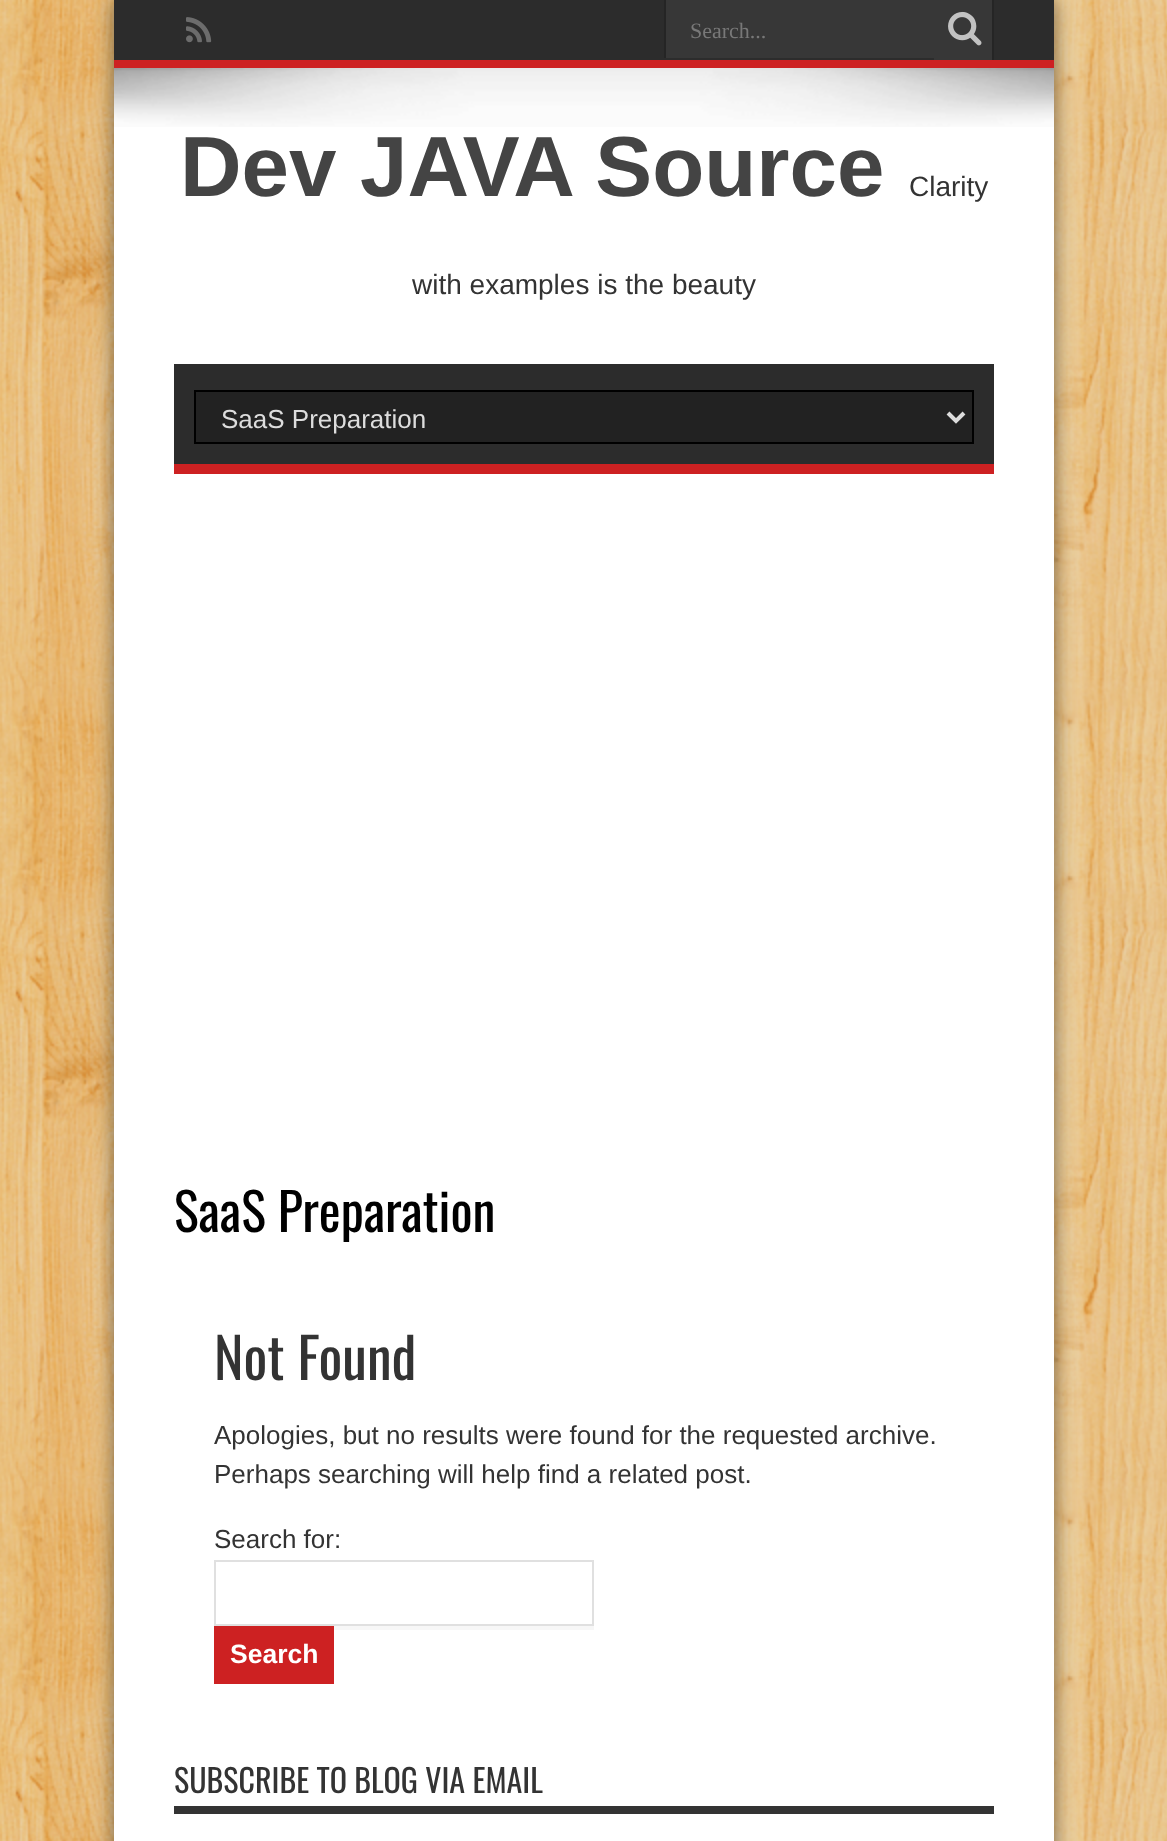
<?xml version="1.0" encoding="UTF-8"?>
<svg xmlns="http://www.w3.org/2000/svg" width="1167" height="1841">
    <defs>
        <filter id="blur1" x="-50%" y="-200%" width="200%" height="500%"><feGaussianBlur stdDeviation="10"/></filter>
    </defs>
    <rect width="100%" height="100%" fill="#FFFFFF"/>
    <image x="0" y="0" width="1167" height="1841" href="img_01.png"/>
    <rect x="114" y="0" width="940" height="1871" fill="#000000" fill-opacity="0.5" filter="url(#blur1)"/>
    <rect x="114" y="68" width="940" height="1773" fill="#FFFFFF"/>
    <rect x="114" y="0" width="940" height="60" fill="#2C2C2C"/>
    <rect x="114" y="60" width="940" height="8" fill="#CD2122"/>
    <image x="186" y="17" width="26" height="26" href="img_02.png"/>
    <rect x="666" y="0" width="268" height="58" fill="#373737"/>
    <rect x="664" y="0" width="2" height="58" fill="#252525"/>
    <text x="690" y="38" font-family="Liberation Serif" font-size="22" fill="#787878">Search...</text>
    <rect x="934" y="0" width="58" height="60" fill="#373737"/>
    <rect x="992" y="0" width="2" height="60" fill="#252525"/>
    <image x="948" y="11" width="34" height="35" href="img_03.png"/>
    <image x="114" y="68" width="940" height="59" href="img_04.png"/>
    <text x="180" y="196" font-family="Liberation Sans" font-size="85.25" font-weight="700" fill="#444444">Dev JAVA Source</text>
    <text x="909" y="196" font-family="Liberation Sans" font-size="28" fill="#333333">Clarity</text>
    <text x="412" y="294" font-family="Liberation Sans" font-size="28" fill="#333333">with examples is the beauty</text>
    <rect x="174" y="364" width="820" height="100" fill="#2C2C2C"/>
    <rect x="174" y="464" width="820" height="10" fill="#CD2122"/>
    <rect x="195" y="391" width="778" height="52" fill="#222222" stroke="#000000" stroke-width="2"/>
    <path d="M 948 413 L 956 421 L 964 413" fill="none" stroke="#DDDDDD" stroke-width="4"/>
    <text x="221" y="428" font-family="Liberation Sans" font-size="26" fill="#DDDDDD">SaaS Preparation</text>
    <text x="174" y="1232" font-family="Oswald" font-size="52" fill="#000000">SaaS Preparation</text>
    <text x="214" y="1380" font-family="Oswald" font-size="56" fill="#333333">Not Found</text>
    <text font-family="Liberation Sans" font-size="26" fill="#333333">
        <tspan x="214" y="1444">Apologies, but no results were found for the requested archive.</tspan>
        <tspan x="214" y="1483">Perhaps searching will help find a related post.</tspan>
    </text>
    <text x="214" y="1548" font-family="Liberation Sans" font-size="26" fill="#333333">Search for:</text>
    <rect x="334" y="1626" width="260" height="4" fill="#F7F7F7"/>
    <rect x="215" y="1561" width="378" height="64" fill="none" stroke="#E0E0E0" stroke-width="2"/>
    <rect x="214" y="1626" width="120" height="58" fill="#CD2122"/>
    <text x="230" y="1663" font-family="Liberation Sans" font-size="26.5" font-weight="700" fill="#FFFFFF">Search</text>
    <rect x="174" y="1806" width="820" height="8" fill="#333333"/>
    <text x="174" y="1793" font-family="Oswald" font-size="32" fill="#333333">SUBSCRIBE TO BLOG VIA EMAIL</text>
</svg>
